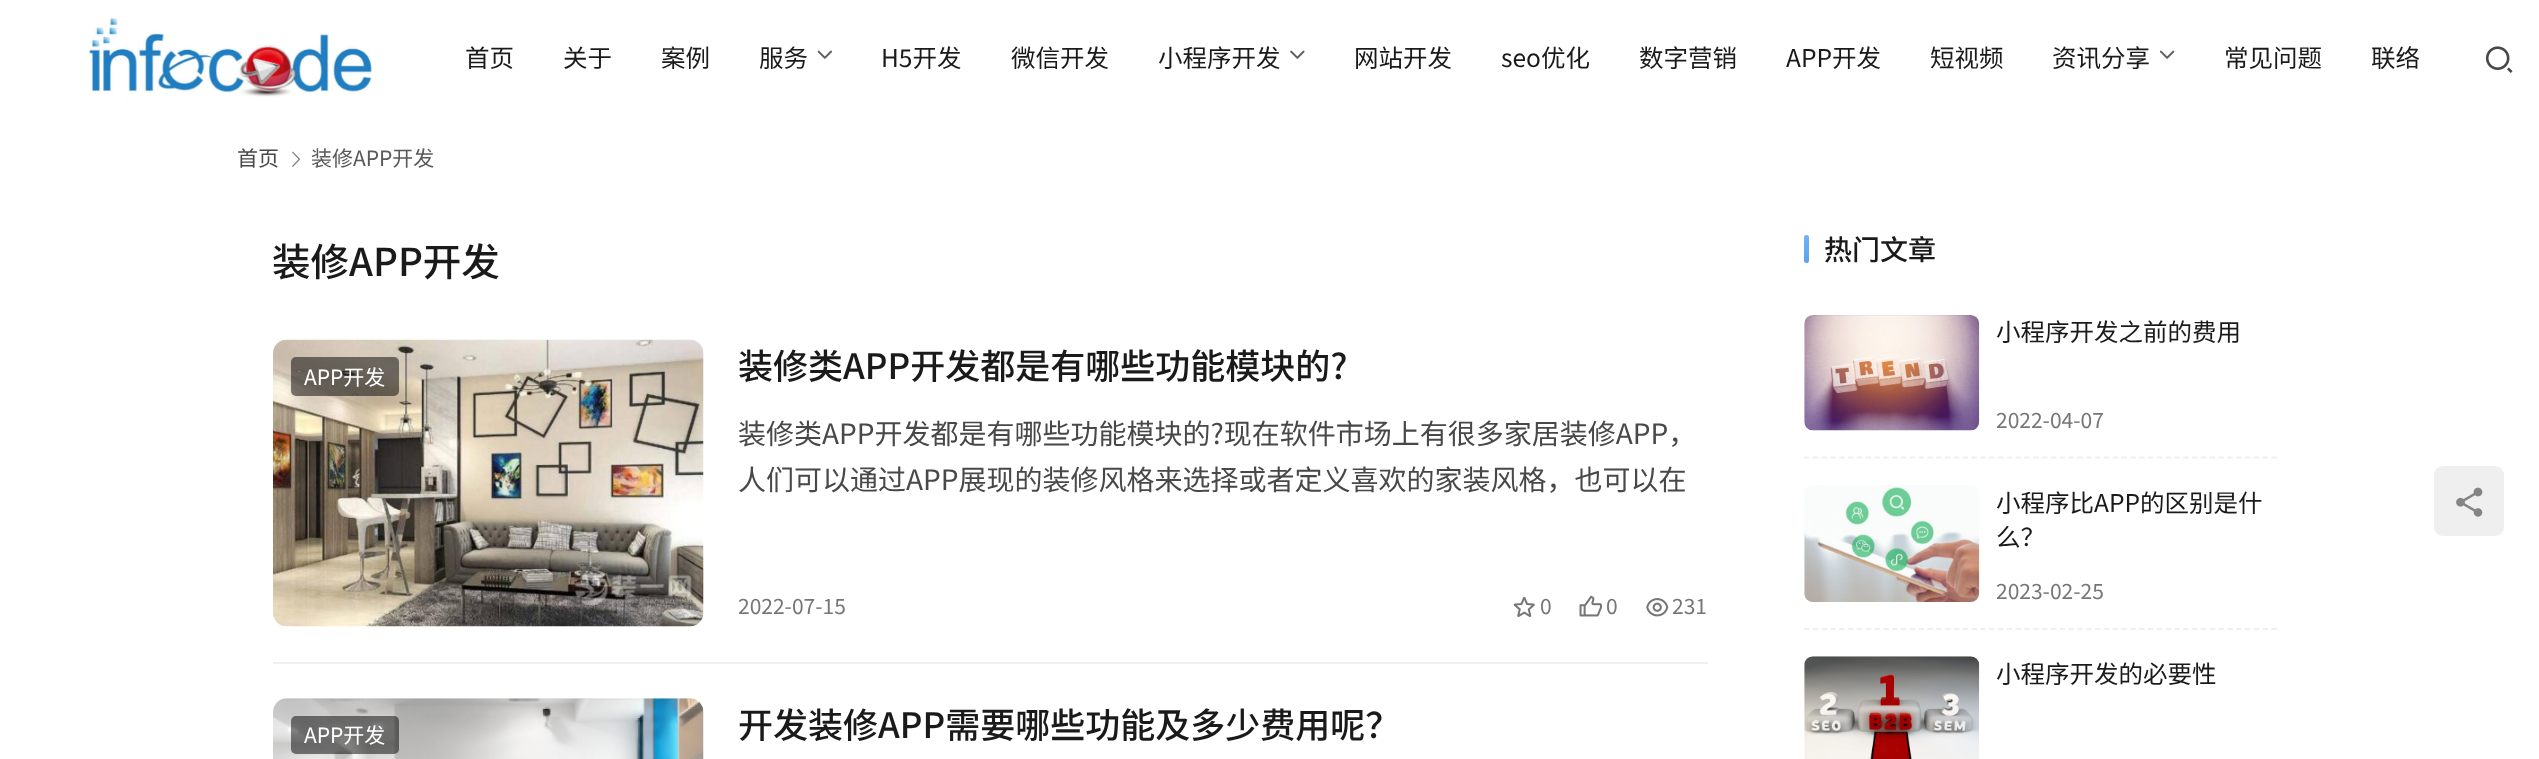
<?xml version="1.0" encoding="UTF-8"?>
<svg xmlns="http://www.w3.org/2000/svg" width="2539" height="759">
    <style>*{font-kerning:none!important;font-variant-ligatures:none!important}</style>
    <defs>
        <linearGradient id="g1" gradientUnits="userSpaceOnUse" x1="1807" y1="235" x2="1807" y2="263"><stop offset="0" stop-color="#FFFFFF" stop-opacity="0.15"/><stop offset="1" stop-color="#FFFFFF" stop-opacity="0"/></linearGradient>
    </defs>
    <rect width="100%" height="100%" fill="#FFFFFF"/>
    <image x="88" y="18" width="284" height="82" href="img_01.png"/>
    <text x="465" y="67" font-family="Noto Sans CJK SC" font-size="24.5" fill="#1A1A1A">首页</text>
    <text x="563" y="67" font-family="Noto Sans CJK SC" font-size="24.5" fill="#1A1A1A">关于</text>
    <text x="661" y="67" font-family="Noto Sans CJK SC" font-size="24.5" fill="#1A1A1A">案例</text>
    <text x="759" y="67" font-family="Noto Sans CJK SC" font-size="24.5" fill="#1A1A1A">服务</text>
    <image x="817" y="50" width="15" height="9" href="img_02.png"/>
    <text x="881" y="67" font-family="Noto Sans CJK SC" font-size="24.5" fill="#1A1A1A">H5开发</text>
    <text x="1011" y="67" font-family="Noto Sans CJK SC" font-size="24.5" fill="#1A1A1A">微信开发</text>
    <text x="1158" y="67" font-family="Noto Sans CJK SC" font-size="24.5" fill="#1A1A1A">小程序开发</text>
    <image x="1290" y="50" width="15" height="9" href="img_03.png"/>
    <text x="1354" y="67" font-family="Noto Sans CJK SC" font-size="24.5" fill="#1A1A1A">网站开发</text>
    <text x="1501" y="67" font-family="Noto Sans CJK SC" font-size="24.5" fill="#1A1A1A">seo优化</text>
    <text x="1639" y="67" font-family="Noto Sans CJK SC" font-size="24.5" fill="#1A1A1A">数字营销</text>
    <text x="1786" y="67" font-family="Noto Sans CJK SC" font-size="24.5" fill="#1A1A1A">APP开发</text>
    <text x="1930" y="67" font-family="Noto Sans CJK SC" font-size="24.5" fill="#1A1A1A">短视频</text>
    <text x="2052" y="67" font-family="Noto Sans CJK SC" font-size="24.5" fill="#1A1A1A">资讯分享</text>
    <image x="2159" y="50" width="16" height="9" href="img_04.png"/>
    <text x="2224" y="67" font-family="Noto Sans CJK SC" font-size="24.5" fill="#1A1A1A">常见问题</text>
    <text x="2371" y="67" font-family="Noto Sans CJK SC" font-size="24.5" fill="#1A1A1A">联络</text>
    <image x="2485" y="46" width="28" height="27" href="img_05.png"/>
    <text x="237" y="166" font-family="Noto Sans CJK SC" font-size="21" fill="#484848">首页</text>
    <image x="292" y="151" width="8" height="16" href="img_06.png"/>
    <text x="311" y="166" font-family="Noto Sans CJK SC" font-size="21" fill="#5A5A5A">装修APP开发</text>
    <text x="272" y="276" font-family="Noto Sans CJK SC" font-size="38.5" font-weight="500" fill="#1A1A1A">装修APP开发</text>
    <rect x="273" y="662" width="1435" height="2" fill="#EFEFEF"/>
    <image x="273" y="339" width="431" height="288" href="img_07.png"/>
    <rect x="291" y="357" width="108" height="39" rx="5" fill="#000000" fill-opacity="0.5"/>
    <text x="304" y="385" font-family="Noto Sans CJK SC" font-size="21" fill="#FFFFFF">APP开发</text>
    <text x="738" y="379" font-family="Noto Sans CJK SC" font-size="35" font-weight="500" fill="#1A1A1A">装修类APP开发都是有哪些功能模块的?</text>
    <text font-family="Noto Sans CJK SC" font-size="28" fill="#484848">
        <tspan x="738" y="444">装修类APP开发都是有哪些功能模块的?现在软件市场上有很多家居装修APP，</tspan>
        <tspan x="738" y="490">人们可以通过APP展现的装修风格来选择或者定义喜欢的家装风格，也可以在</tspan>
    </text>
    <text x="738" y="614" font-family="Noto Sans CJK SC" font-size="21" fill="#767676">2022-07-15</text>
    <image x="1513" y="596" width="22" height="21" href="img_08.png"/>
    <text x="1540" y="614" font-family="Noto Sans CJK SC" font-size="21" fill="#767676">0</text>
    <image x="1579" y="595" width="23" height="22" href="img_09.png"/>
    <text x="1606" y="614" font-family="Noto Sans CJK SC" font-size="21" fill="#767676">0</text>
    <image x="1646" y="598" width="23" height="19" href="img_10.png"/>
    <text x="1672" y="614" font-family="Noto Sans CJK SC" font-size="21" fill="#767676">231</text>
    <image x="273" y="698" width="431" height="61" href="img_11.png"/>
    <rect x="291" y="716" width="108" height="38" rx="5" fill="#000000" fill-opacity="0.5"/>
    <text x="304" y="743" font-family="Noto Sans CJK SC" font-size="21" fill="#FFFFFF">APP开发</text>
    <text x="738" y="738" font-family="Noto Sans CJK SC" font-size="35" font-weight="500" fill="#1A1A1A">开发装修APP需要哪些功能及多少费用呢？</text>
    <rect x="1804" y="235" width="5" height="28" rx="2.5" fill="#5CA2F2"/>
    <rect x="1804" y="235" width="5" height="28" rx="2.5" fill="url(#g1)"/>
    <text x="1824" y="260" font-family="Noto Sans CJK SC" font-size="28" font-weight="500" fill="#1A1A1A">热门文章</text>
    <path d="M 1804 457.5 H 2277" fill="none" stroke="#EFEFEF" stroke-width="1.8" stroke-dasharray="5.25 3.57"/>
    <image x="1804" y="315" width="176" height="116" href="img_12.png"/>
    <text x="1996" y="341" font-family="Noto Sans CJK SC" font-size="24.5" fill="#1A1A1A">小程序开发之前的费用</text>
    <text x="1996" y="428" font-family="Noto Sans CJK SC" font-size="21" fill="#767676">2022-04-07</text>
    <path d="M 1804 629 H 2277" fill="none" stroke="#EFEFEF" stroke-width="1.8" stroke-dasharray="5.25 3.57"/>
    <image x="1804" y="485" width="176" height="117" href="img_13.png"/>
    <text font-family="Noto Sans CJK SC" font-size="24.5" fill="#1A1A1A">
        <tspan x="1996" y="512">小程序比APP的区别是什</tspan>
        <tspan x="1996" y="546">么？</tspan>
    </text>
    <text x="1996" y="599" font-family="Noto Sans CJK SC" font-size="21" fill="#767676">2023-02-25</text>
    <image x="1804" y="656" width="176" height="103" href="img_14.png"/>
    <text x="1996" y="683" font-family="Noto Sans CJK SC" font-size="24.5" fill="#1A1A1A">小程序开发的必要性</text>
    <rect x="2434" y="466" width="70" height="70" rx="9" fill="#EFEFEF"/>
    <image x="2456" y="487" width="27" height="30" href="img_15.png"/>
</svg>
